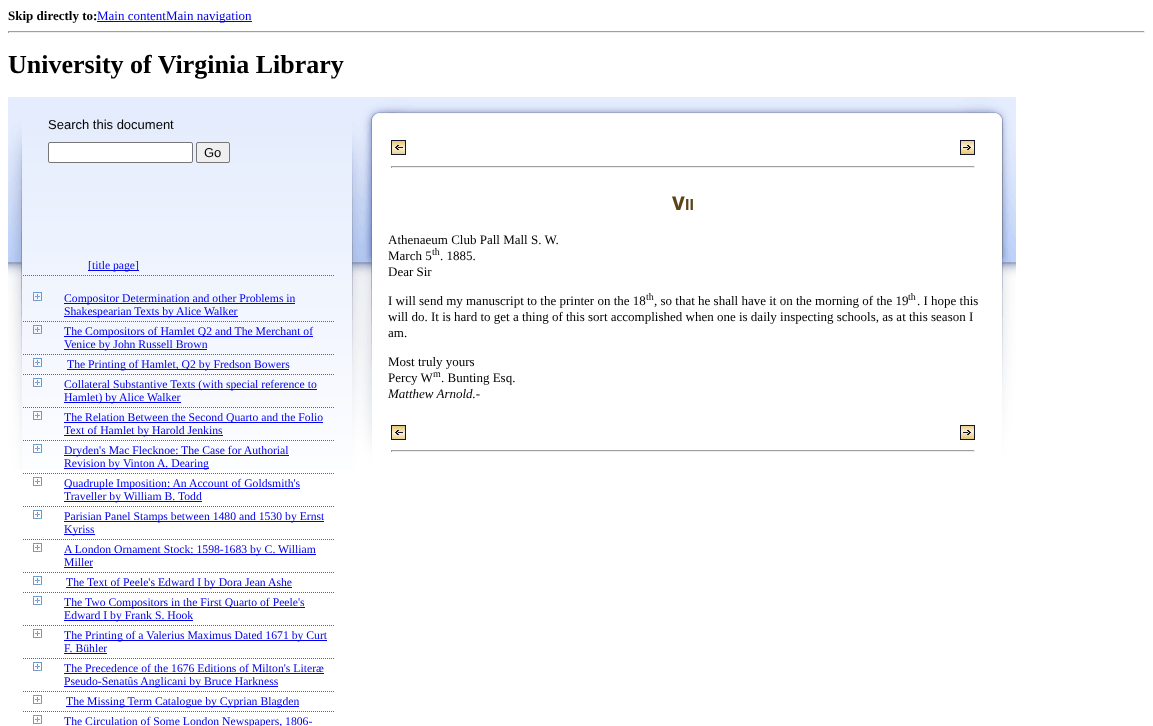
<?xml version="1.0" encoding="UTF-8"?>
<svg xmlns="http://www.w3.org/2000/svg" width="1153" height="726">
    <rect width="100%" height="100%" fill="#FFFFFF"/>
    <text x="8" y="20" font-family="Liberation Serif" font-size="13" font-weight="700" fill="#000000">Skip directly to:</text>
    <rect x="97" y="21" width="155" height="1" fill="#0000EE"/>
    <text x="97" y="20" font-family="Liberation Serif" font-size="13" fill="#0000EE">Main contentMain navigation</text>
    <rect x="8" y="31" width="1137" height="1" fill="#9F9F9F"/>
    <rect x="1144" y="31" width="1" height="2" fill="#EEEEEE"/>
    <rect x="8" y="32" width="1137" height="1" fill="#EEEEEE"/>
    <rect x="8" y="31" width="1" height="2" fill="#9F9F9F"/>
    <text x="8" y="73" font-family="Liberation Serif" font-size="26" font-weight="700" fill="#000000">University of Virginia Library</text>
    <image x="8" y="97" width="1008" height="373" href="img_01.png"/>
    <text x="48" y="129" font-family="Liberation Sans" font-size="13" fill="#000000">Search this document</text>
    <rect x="48.5" y="142.5" width="144" height="20" rx="1.5" fill="#FFFFFF" stroke="#767676"/>
    <rect x="196.5" y="142.5" width="33" height="20" rx="1.5" fill="#EFEFEF" stroke="#767676"/>
    <text x="204" y="157" font-family="Liberation Sans" font-size="13" fill="#000000">Go</text>
    <path d="M 23 275.5 H 334" fill="none" stroke="#3F6DAD" stroke-dasharray="1 1"/>
    <rect x="88" y="270" width="51" height="1" fill="#0000EE"/>
    <text x="88" y="269" font-family="Liberation Serif" font-size="11.7" fill="#0000EE">[title page]</text>
    <path d="M 23 321.5 H 334" fill="none" stroke="#3F6DAD" stroke-dasharray="1 1"/>
    <image x="33" y="292" width="9" height="9" href="img_02.png"/>
    <rect x="64" y="303" width="231" height="1" fill="#0000EE"/>
    <text x="64" y="302" font-family="Liberation Serif" font-size="11.7" fill="#0000EE">Compositor Determination and other Problems in</text>
    <rect x="64" y="316" width="174" height="1" fill="#0000EE"/>
    <text x="64" y="315" font-family="Liberation Serif" font-size="11.7" fill="#0000EE">Shakespearian Texts by</text>
    <text x="176" y="315" font-family="Liberation Serif" font-size="11.7" fill="#0000EE">Alice Walker</text>
    <path d="M 23 354.5 H 334" fill="none" stroke="#3F6DAD" stroke-dasharray="1 1"/>
    <image x="33" y="325" width="9" height="9" href="img_03.png"/>
    <rect x="64" y="336" width="249" height="1" fill="#0000EE"/>
    <text x="64" y="335" font-family="Liberation Serif" font-size="11.7" fill="#0000EE">The Compositors of Hamlet Q2 and The Merchant of</text>
    <rect x="64" y="349" width="143" height="1" fill="#0000EE"/>
    <text x="64" y="348" font-family="Liberation Serif" font-size="11.7" fill="#0000EE">Venice by John Russell Brown</text>
    <path d="M 23 374.5 H 334" fill="none" stroke="#3F6DAD" stroke-dasharray="1 1"/>
    <image x="33" y="358" width="9" height="9" href="img_04.png"/>
    <rect x="67" y="369" width="222" height="1" fill="#0000EE"/>
    <text x="67" y="368" font-family="Liberation Serif" font-size="11.7" fill="#0000EE">The Printing of Hamlet, Q2 by Fredson Bowers</text>
    <path d="M 23 407.5 H 334" fill="none" stroke="#3F6DAD" stroke-dasharray="1 1"/>
    <image x="33" y="378" width="9" height="9" href="img_05.png"/>
    <rect x="64" y="389" width="253" height="1" fill="#0000EE"/>
    <text x="64" y="388" font-family="Liberation Serif" font-size="11.7" fill="#0000EE">Collateral Substantive Texts (with special reference to</text>
    <rect x="64" y="402" width="117" height="1" fill="#0000EE"/>
    <text x="64" y="401" font-family="Liberation Serif" font-size="11.7" fill="#0000EE">Hamlet) by</text>
    <text x="119" y="401" font-family="Liberation Serif" font-size="11.7" fill="#0000EE">Alice Walker</text>
    <path d="M 23 440.5 H 334" fill="none" stroke="#3F6DAD" stroke-dasharray="1 1"/>
    <image x="33" y="411" width="9" height="9" href="img_06.png"/>
    <rect x="64" y="422" width="259" height="1" fill="#0000EE"/>
    <text x="64" y="421" font-family="Liberation Serif" font-size="11.7" fill="#0000EE">The Relation Between the Second Quarto and the Folio</text>
    <rect x="64" y="435" width="159" height="1" fill="#0000EE"/>
    <text x="64" y="434" font-family="Liberation Serif" font-size="11.7" fill="#0000EE">Text of Hamlet by Harold Jenkins</text>
    <path d="M 23 473.5 H 334" fill="none" stroke="#3F6DAD" stroke-dasharray="1 1"/>
    <image x="33" y="444" width="9" height="9" href="img_07.png"/>
    <rect x="64" y="455" width="225" height="1" fill="#0000EE"/>
    <text x="64" y="454" font-family="Liberation Serif" font-size="11.7" fill="#0000EE">Dryden's Mac Flecknoe: The Case for Authorial</text>
    <rect x="64" y="468" width="145" height="1" fill="#0000EE"/>
    <text x="64" y="467" font-family="Liberation Serif" font-size="11.7" fill="#0000EE">Revision by Vinton A. Dearing</text>
    <path d="M 23 506.5 H 334" fill="none" stroke="#3F6DAD" stroke-dasharray="1 1"/>
    <image x="33" y="477" width="9" height="9" href="img_08.png"/>
    <rect x="64" y="488" width="236" height="1" fill="#0000EE"/>
    <text x="64" y="487" font-family="Liberation Serif" font-size="11.7" fill="#0000EE">Quadruple Imposition: An Account of Goldsmith's</text>
    <rect x="64" y="501" width="138" height="1" fill="#0000EE"/>
    <text x="64" y="500" font-family="Liberation Serif" font-size="11.7" fill="#0000EE">Traveller by William B. Todd</text>
    <path d="M 23 539.5 H 334" fill="none" stroke="#3F6DAD" stroke-dasharray="1 1"/>
    <image x="33" y="510" width="9" height="9" href="img_08.png"/>
    <rect x="64" y="521" width="260" height="1" fill="#0000EE"/>
    <text x="64" y="520" font-family="Liberation Serif" font-size="11.7" fill="#0000EE">Parisian Panel Stamps between 1480 and 1530 by Ernst</text>
    <rect x="64" y="534" width="31" height="1" fill="#0000EE"/>
    <text x="64" y="533" font-family="Liberation Serif" font-size="11.7" fill="#0000EE">Kyriss</text>
    <path d="M 23 572.5 H 334" fill="none" stroke="#3F6DAD" stroke-dasharray="1 1"/>
    <image x="33" y="543" width="9" height="9" href="img_08.png"/>
    <rect x="64" y="554" width="252" height="1" fill="#0000EE"/>
    <text font-family="Liberation Serif" font-size="11.7" fill="#0000EE">
        <tspan x="64" y="553">A London Ornament Stock: 1598-1683 by C. William</tspan>
        <tspan x="64" y="566">Miller</tspan>
    </text>
    <rect x="64" y="567" width="29" height="1" fill="#0000EE"/>
    <path d="M 23 592.5 H 334" fill="none" stroke="#3F6DAD" stroke-dasharray="1 1"/>
    <image x="33" y="576" width="9" height="9" href="img_08.png"/>
    <rect x="66" y="587" width="226" height="1" fill="#0000EE"/>
    <text x="66" y="586" font-family="Liberation Serif" font-size="11.7" fill="#0000EE">The Text of Peele's Edward I by Dora Jean Ashe</text>
    <path d="M 23 625.5 H 334" fill="none" stroke="#3F6DAD" stroke-dasharray="1 1"/>
    <image x="33" y="596" width="9" height="9" href="img_08.png"/>
    <rect x="64" y="607" width="241" height="1" fill="#0000EE"/>
    <text x="64" y="606" font-family="Liberation Serif" font-size="11.7" fill="#0000EE">The Two Compositors in the First Quarto of Peele's</text>
    <rect x="64" y="620" width="129" height="1" fill="#0000EE"/>
    <text x="64" y="619" font-family="Liberation Serif" font-size="11.7" fill="#0000EE">Edward I by Frank S. Hook</text>
    <path d="M 23 658.5 H 334" fill="none" stroke="#3F6DAD" stroke-dasharray="1 1"/>
    <image x="33" y="629" width="9" height="9" href="img_08.png"/>
    <rect x="64" y="640" width="263" height="1" fill="#0000EE"/>
    <text font-family="Liberation Serif" font-size="11.7" fill="#0000EE">
        <tspan x="64" y="639">The Printing of a Valerius Maximus Dated 1671 by Curt</tspan>
        <tspan x="64" y="652">F. Bühler</tspan>
    </text>
    <rect x="64" y="653" width="43" height="1" fill="#0000EE"/>
    <path d="M 23 691.5 H 334" fill="none" stroke="#3F6DAD" stroke-dasharray="1 1"/>
    <image x="33" y="662" width="9" height="9" href="img_08.png"/>
    <text x="64" y="672" font-family="Liberation Serif" font-size="11.7" fill="#0000EE">The Precedence of the 1676 Editions of Milton's Literæ</text>
    <rect x="64" y="673" width="260" height="1" fill="#0000EE"/>
    <rect x="64" y="686" width="214" height="1" fill="#0000EE"/>
    <text x="64" y="685" font-family="Liberation Serif" font-size="11.7" fill="#0000EE">Pseudo-Senatûs Anglicani by Bruce Harkness</text>
    <path d="M 23 711.5 H 334" fill="none" stroke="#3F6DAD" stroke-dasharray="1 1"/>
    <image x="33" y="695" width="9" height="9" href="img_08.png"/>
    <rect x="66" y="706" width="233" height="1" fill="#0000EE"/>
    <text x="66" y="705" font-family="Liberation Serif" font-size="11.7" fill="#0000EE">The Missing Term Catalogue by Cyprian Blagden</text>
    <image x="33" y="715" width="9" height="9" href="img_08.png"/>
    <text x="64" y="725" font-family="Liberation Serif" font-size="11.7" fill="#0000EE">The Circulation of Some London Newspapers, 1806-</text>
    <image x="391" y="140" width="15" height="15" href="img_09.png"/>
    <image x="960" y="140" width="15" height="15" href="img_10.png"/>
    <rect x="391" y="166" width="584" height="1" fill="#9F9F9F"/>
    <rect x="974" y="166" width="1" height="2" fill="#EEEEEE"/>
    <rect x="391" y="167" width="584" height="1" fill="#EEEEEE"/>
    <rect x="391" y="166" width="1" height="2" fill="#9F9F9F"/>
    <text x="672" y="210" font-family="Noto Sans" font-size="19" font-weight="800" fill="#5B4418">V</text>
    <text x="685" y="210" font-family="Liberation Sans" font-size="16" font-weight="700" fill="#5B4418">II</text>
    <text font-family="Liberation Serif" font-size="13" fill="#000000">
        <tspan x="388" y="244">Athenaeum Club Pall Mall S. W.</tspan>
        <tspan x="388" y="260">March 5</tspan>
    </text>
    <text x="432" y="255" font-family="Liberation Serif" font-size="10" fill="#000000">th</text>
    <text x="440" y="260" font-family="Liberation Serif" font-size="13" fill="#000000">. 1885.</text>
    <text x="388" y="276" font-family="Liberation Serif" font-size="13" fill="#000000">Dear Sir</text>
    <text x="388" y="305" font-family="Liberation Serif" font-size="13" fill="#000000">I will send my manuscript to the printer on the 18</text>
    <text x="646" y="300" font-family="Liberation Serif" font-size="10" fill="#000000">th</text>
    <text x="654" y="305" font-family="Liberation Serif" font-size="13" fill="#000000">, so that he shall have it on the morning of the 19</text>
    <text x="908" y="300" font-family="Liberation Serif" font-size="10" fill="#000000">th</text>
    <text x="917" y="305" font-family="Liberation Serif" font-size="13" fill="#000000">. I hope this</text>
    <text font-family="Liberation Serif" font-size="13" fill="#000000">
        <tspan x="388" y="321">will do. It is hard to get a thing of this sort accomplished when one is daily inspecting schools, as at this season I</tspan>
        <tspan x="388" y="337">am.</tspan>
    </text>
    <text font-family="Liberation Serif" font-size="13" fill="#000000">
        <tspan x="388" y="366">Most truly yours</tspan>
        <tspan x="388" y="382">Percy W</tspan>
    </text>
    <text x="433" y="377" font-family="Liberation Serif" font-size="10" fill="#000000">m</text>
    <text x="441" y="382" font-family="Liberation Serif" font-size="13" fill="#000000">. Bunting Esq.</text>
    <text x="388" y="398" font-family="Liberation Serif" font-size="13" font-style="italic" fill="#000000">Matthew Arnold.-</text>
    <image x="391" y="425" width="15" height="15" href="img_09.png"/>
    <image x="960" y="425" width="15" height="15" href="img_10.png"/>
    <rect x="391" y="450" width="584" height="1" fill="#9F9F9F"/>
    <rect x="974" y="450" width="1" height="2" fill="#EEEEEE"/>
    <rect x="391" y="451" width="584" height="1" fill="#EEEEEE"/>
    <rect x="391" y="450" width="1" height="2" fill="#9F9F9F"/>
</svg>
